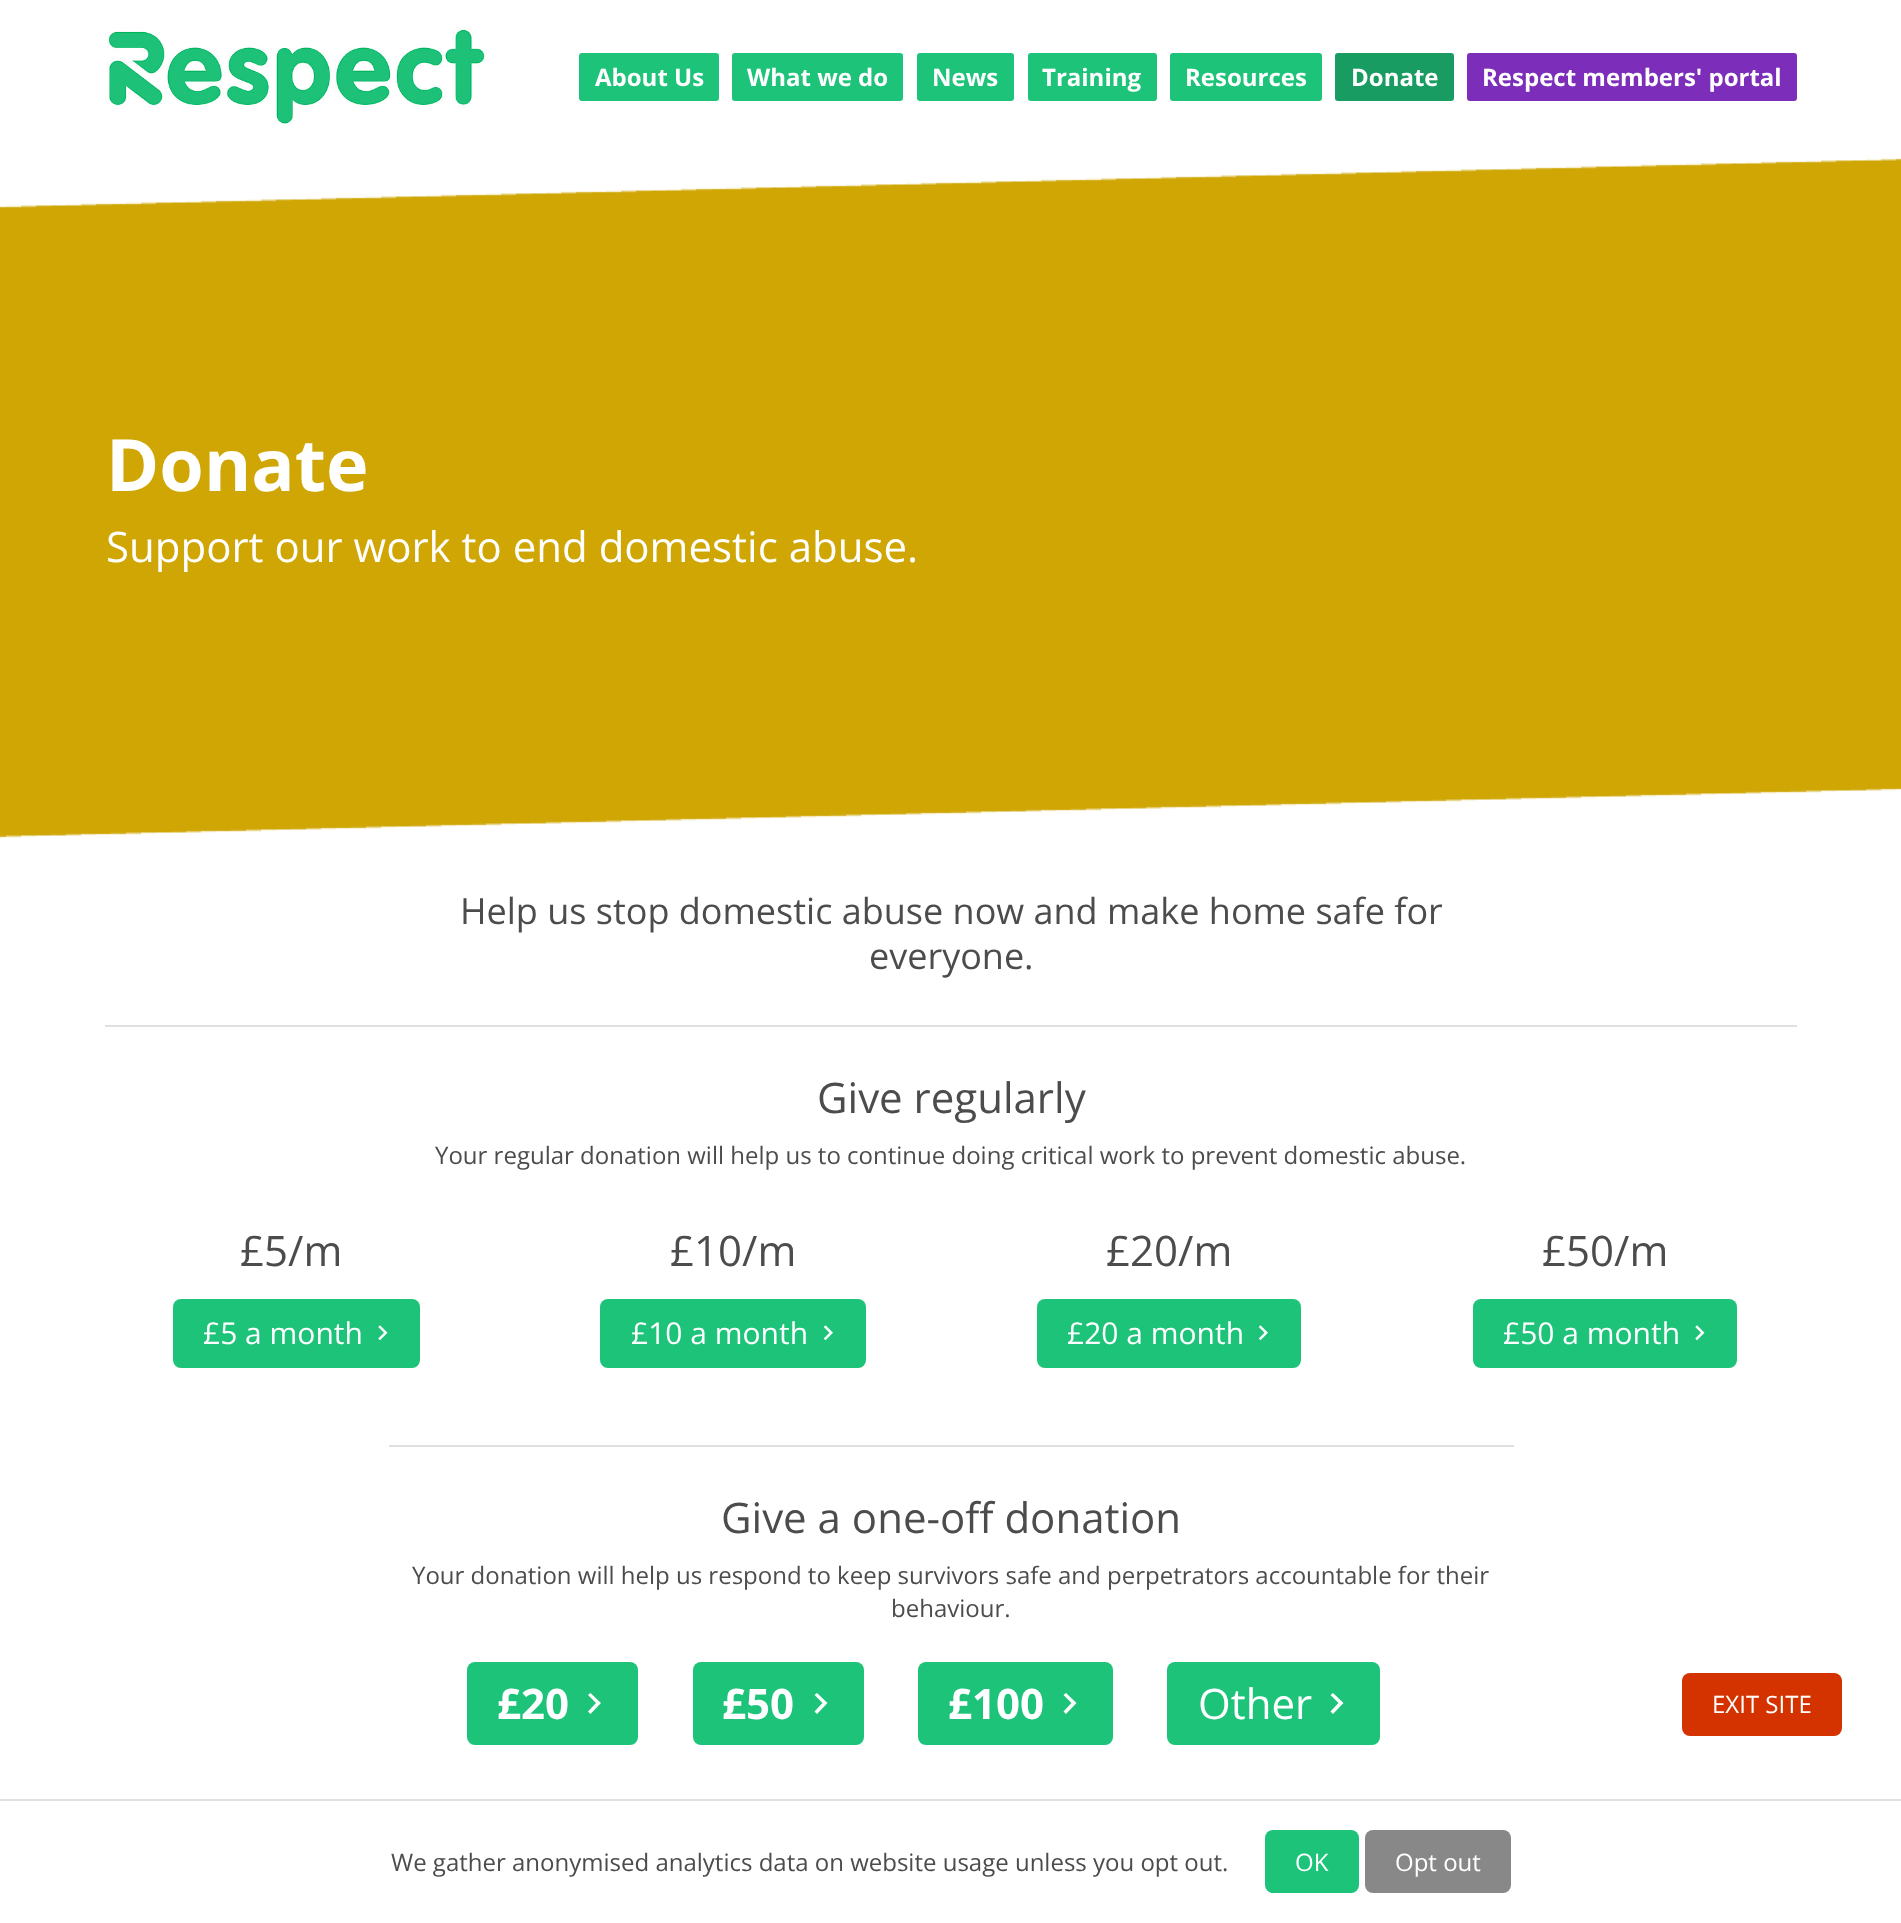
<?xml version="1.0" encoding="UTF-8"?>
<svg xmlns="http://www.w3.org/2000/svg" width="1901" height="1923">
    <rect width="100%" height="100%" fill="#FFFFFF"/>
    <image x="105" y="27" width="382" height="97" href="img_01.png"/>
    <rect x="579" y="53" width="140" height="48" rx="3" fill="#1EC37A"/>
    <text x="595" y="86" font-family="Open Sans" font-size="24" font-weight="700" fill="#FFFFFF">About Us</text>
    <rect x="732" y="53" width="171" height="48" rx="3" fill="#1EC37A"/>
    <text x="747" y="86" font-family="Open Sans" font-size="24" font-weight="700" fill="#FFFFFF">What we do</text>
    <rect x="917" y="53" width="97" height="48" rx="3" fill="#1EC37A"/>
    <text x="932" y="86" font-family="Open Sans" font-size="24" font-weight="700" fill="#FFFFFF">News</text>
    <rect x="1028" y="53" width="129" height="48" rx="3" fill="#1EC37A"/>
    <text x="1042" y="86" font-family="Open Sans" font-size="24" font-weight="700" fill="#FFFFFF">Training</text>
    <rect x="1170" y="53" width="152" height="48" rx="3" fill="#1EC37A"/>
    <text x="1185" y="86" font-family="Open Sans" font-size="24" font-weight="700" fill="#FFFFFF">Resources</text>
    <rect x="1335" y="53" width="119" height="48" rx="3" fill="#189C62"/>
    <text x="1351" y="86" font-family="Open Sans" font-size="24" font-weight="700" fill="#FFFFFF">Donate</text>
    <rect x="1467" y="53" width="330" height="48" rx="3" fill="#7C2DBA"/>
    <text x="1482" y="86" font-family="Open Sans" font-size="24" font-weight="700" fill="#FFFFFF">Respect members' portal</text>
    <rect x="0" y="158" width="1901" height="680" fill="#CFA604"/>
    <image x="0" y="153" width="1901" height="55" href="img_02.png"/>
    <text x="106" y="491" font-family="Open Sans" font-size="72" font-weight="700" fill="#FFFFFF">Donate</text>
    <text x="106" y="562" font-family="Open Sans" font-size="42" fill="#FFFFFF">Support our work to end domestic abuse.</text>
    <image x="0" y="788" width="1901" height="55" href="img_03.png"/>
    <text x="460" y="924" font-family="Open Sans" font-size="36" fill="#4C4C4C">Help us stop domestic abuse now and make home safe for</text>
    <text x="869" y="969" font-family="Open Sans" font-size="36" fill="#4C4C4C">everyone.</text>
    <rect x="105" y="1025" width="1692" height="2" fill="#E0E0E0"/>
    <text x="817" y="1113" font-family="Open Sans" font-size="42" fill="#4C4C4C">Give regularly</text>
    <text x="435" y="1164" font-family="Open Sans" font-size="24" fill="#4C4C4C">Your regular donation will help us to continue doing critical work to prevent domestic abuse.</text>
    <text x="240" y="1266" font-family="Open Sans" font-size="42" fill="#4C4C4C">£5/m</text>
    <rect x="173" y="1299" width="247" height="69" rx="8" fill="#1EC37A"/>
    <text x="203" y="1344" font-family="Open Sans" font-size="30" fill="#FFFFFF">£5 a month</text>
    <image x="378" y="1325" width="10" height="16" href="img_04.png"/>
    <text x="670" y="1266" font-family="Open Sans" font-size="42" fill="#4C4C4C">£10/m</text>
    <rect x="600" y="1299" width="266" height="69" rx="8" fill="#1EC37A"/>
    <text x="631" y="1344" font-family="Open Sans" font-size="30" fill="#FFFFFF">£10 a month</text>
    <image x="823" y="1325" width="10" height="16" href="img_05.png"/>
    <text x="1106" y="1266" font-family="Open Sans" font-size="42" fill="#4C4C4C">£20/m</text>
    <rect x="1037" y="1299" width="264" height="69" rx="8" fill="#1EC37A"/>
    <text x="1067" y="1344" font-family="Open Sans" font-size="30" fill="#FFFFFF">£20 a month</text>
    <image x="1258" y="1325" width="10" height="16" href="img_05.png"/>
    <text x="1542" y="1266" font-family="Open Sans" font-size="42" fill="#4C4C4C">£50/m</text>
    <rect x="1473" y="1299" width="264" height="69" rx="8" fill="#1EC37A"/>
    <text x="1503" y="1344" font-family="Open Sans" font-size="30" fill="#FFFFFF">£50 a month</text>
    <image x="1695" y="1325" width="10" height="16" href="img_04.png"/>
    <rect x="389" y="1445" width="1125" height="2" fill="#E0E0E0"/>
    <text x="721" y="1533" font-family="Open Sans" font-size="42" fill="#4C4C4C">Give a one-off donation</text>
    <text x="412" y="1584" font-family="Open Sans" font-size="24" fill="#4C4C4C">Your donation will help us respond to keep survivors safe and perpetrators accountable for their</text>
    <text x="891" y="1617" font-family="Open Sans" font-size="24" fill="#4C4C4C">behaviour.</text>
    <rect x="467" y="1662" width="171" height="83" rx="8" fill="#1EC37A"/>
    <text x="497" y="1719" font-family="Open Sans" font-size="42" font-weight="700" fill="#FFFFFF">£20</text>
    <path d="M 588 1711.5 L 596 1703 L 588 1695 L 590.5 1693 L 601 1703 L 590.5 1714 Z" fill="#FFFFFF"/>
    <rect x="693" y="1662" width="171" height="83" rx="8" fill="#1EC37A"/>
    <text x="722" y="1719" font-family="Open Sans" font-size="42" font-weight="700" fill="#FFFFFF">£50</text>
    <path d="M 814.5 1711.5 L 822.5 1703 L 814.5 1695 L 817 1693 L 827.5 1703 L 817 1714 Z" fill="#FFFFFF"/>
    <rect x="918" y="1662" width="195" height="83" rx="8" fill="#1EC37A"/>
    <text x="948" y="1719" font-family="Open Sans" font-size="42" font-weight="700" fill="#FFFFFF">£100</text>
    <path d="M 1063.5 1711.5 L 1071.5 1703 L 1063.5 1695 L 1066 1693 L 1076.5 1703 L 1066 1714 Z" fill="#FFFFFF"/>
    <rect x="1167" y="1662" width="213" height="83" rx="8" fill="#1EC37A"/>
    <text x="1198" y="1719" font-family="Open Sans" font-size="42" fill="#FFFFFF">Other</text>
    <path d="M 1330.5 1711.5 L 1338.5 1703 L 1330.5 1695 L 1333 1693 L 1343.5 1703 L 1333 1714 Z" fill="#FFFFFF"/>
    <rect x="0" y="1799" width="1901" height="2" fill="#E0E0E0"/>
    <text x="391" y="1871" font-family="Open Sans" font-size="24" fill="#4C4C4C">We gather anonymised analytics data on website usage unless you opt out.</text>
    <rect x="1265" y="1830" width="94" height="63" rx="8" fill="#1EC37A"/>
    <text x="1295" y="1871" font-family="Open Sans" font-size="24" fill="#FFFFFF">OK</text>
    <rect x="1365" y="1830" width="146" height="63" rx="8" fill="#888888"/>
    <text x="1395" y="1871" font-family="Open Sans" font-size="24" fill="#FFFFFF">Opt out</text>
    <rect x="1682" y="1673" width="160" height="63" rx="8" fill="#D43300"/>
    <text x="1712" y="1713" font-family="Open Sans" font-size="24" fill="#FFFFFF">EXIT SITE</text>
</svg>
